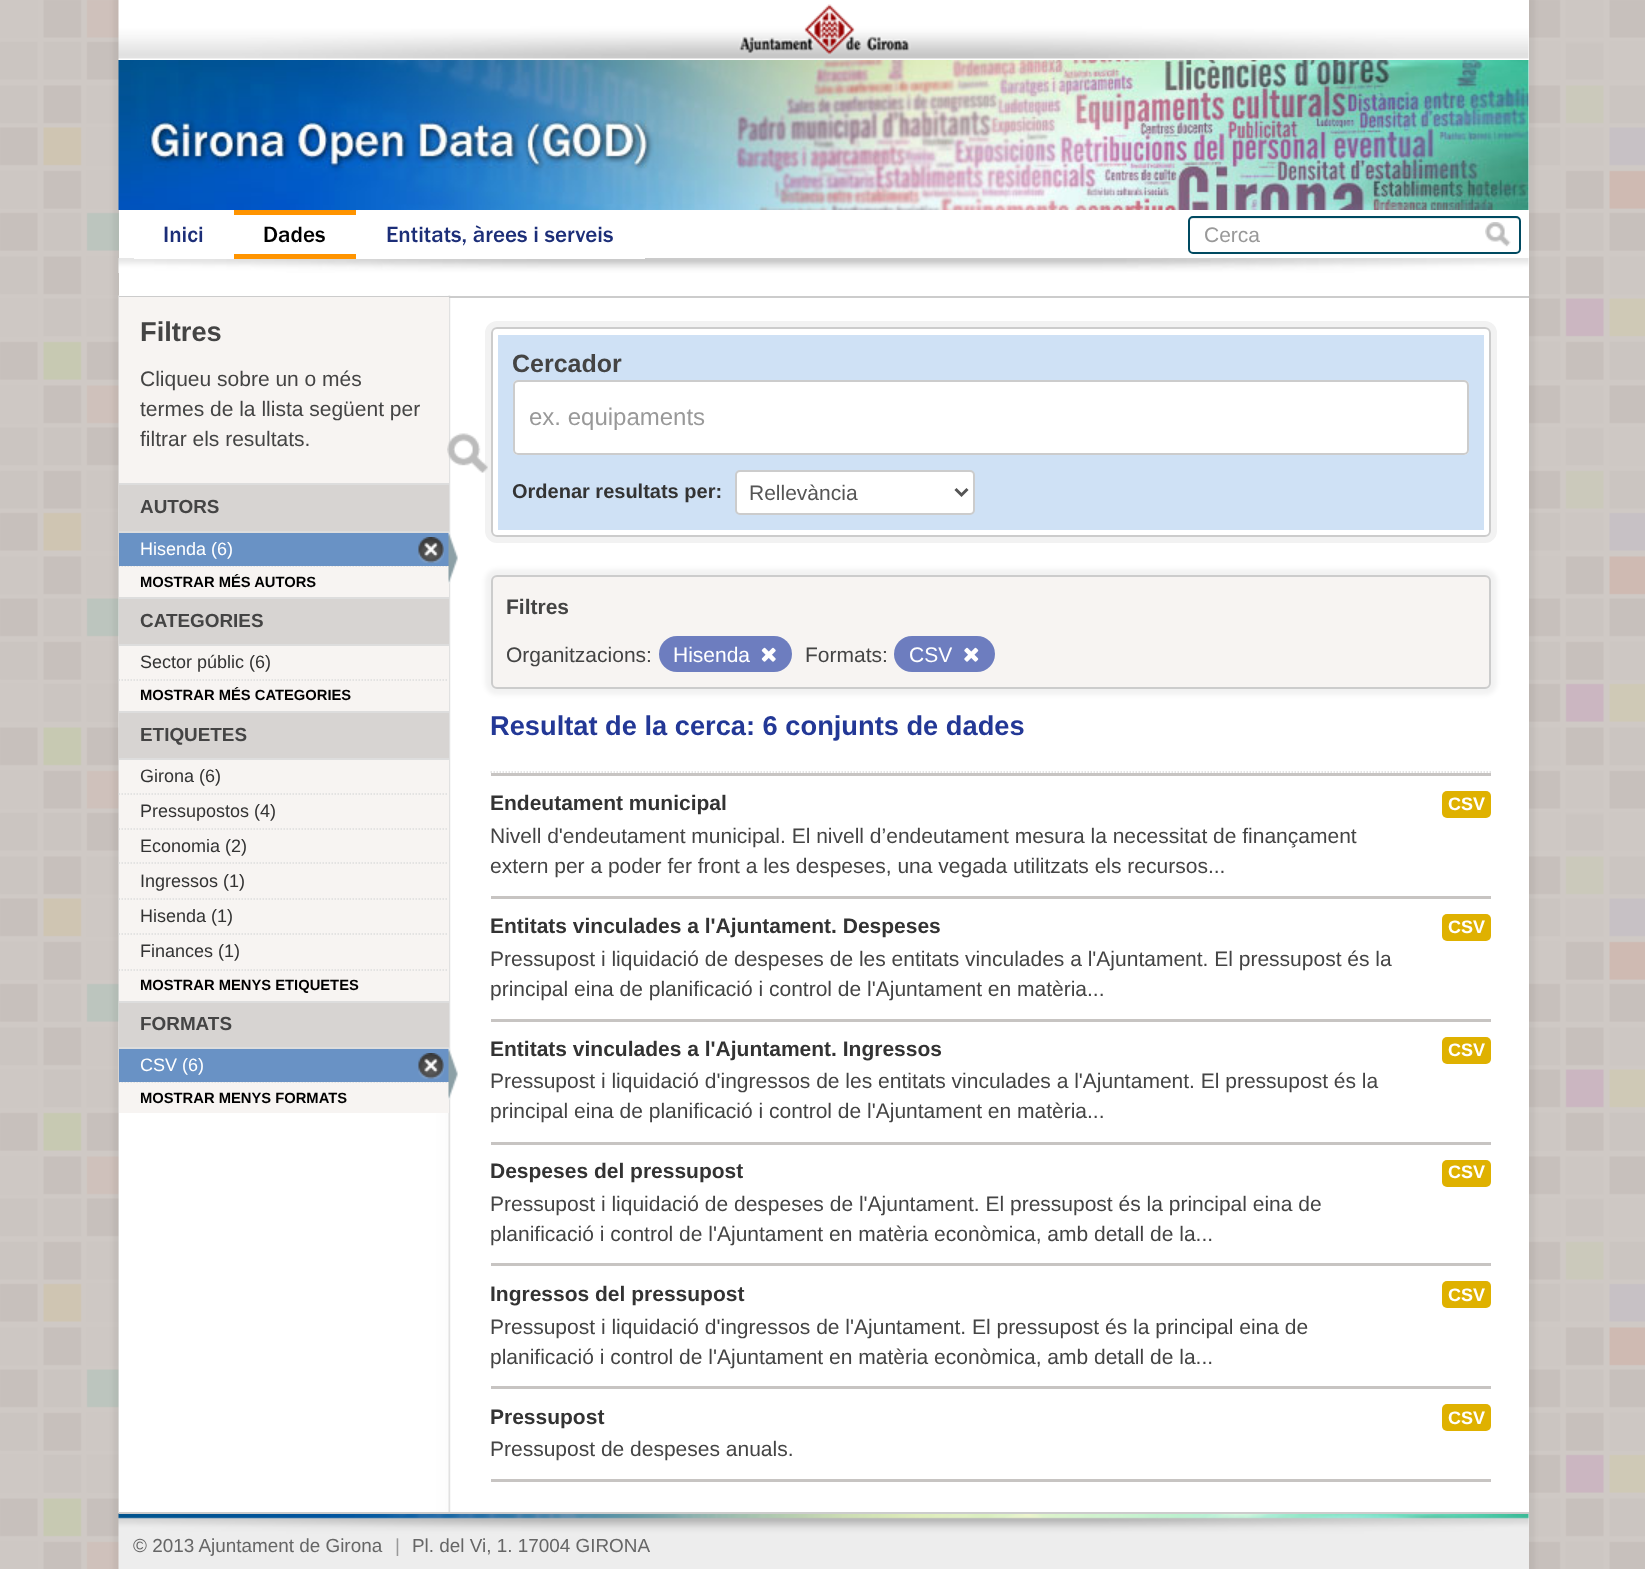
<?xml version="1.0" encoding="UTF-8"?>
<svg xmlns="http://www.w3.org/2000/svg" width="1645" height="1569">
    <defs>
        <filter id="blur1" x="-50%" y="-200%" width="200%" height="500%"><feGaussianBlur stdDeviation="2"/></filter>
        <clipPath id="clip1"><rect x="1205" y="224" width="300" height="24"/></clipPath>
        <clipPath id="clip2"><rect x="530" y="404" width="922" height="27"/></clipPath>
    </defs>
    <rect width="100%" height="100%" fill="#FFFFFF"/>
    <image x="0" y="0" width="1645" height="1569" href="img_01.png"/>
    <rect x="113" y="-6" width="1422" height="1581" fill="#000000" fill-opacity="0.05" filter="url(#blur1)"/>
    <rect x="119" y="0" width="1410" height="1512" fill="#FFFFFF"/>
    <image x="118" y="0" width="1411" height="60" href="img_02.png"/>
    <image x="118" y="60" width="1411" height="150" href="img_03.png"/>
    <image x="118" y="258" width="1411" height="15" href="img_04.png"/>
    <rect x="134" y="258" width="100" height="1" fill="#FFFFFF"/>
    <text x="163" y="242" font-family="Franklin Gothic" font-size="23" font-weight="500" fill="#1C2E78">Inici</text>
    <rect x="234" y="210" width="122" height="5" fill="#FF9400"/>
    <rect x="234" y="254" width="122" height="5" fill="#FF9400"/>
    <text x="263" y="242" font-family="Franklin Gothic" font-size="23" font-weight="500" fill="#000000">Dades</text>
    <rect x="356" y="258" width="289" height="1" fill="#FFFFFF"/>
    <text x="386" y="242" font-family="Franklin Gothic" font-size="23" font-weight="500" fill="#1C2E78">Entitats, àrees i serveis</text>
    <path d="M 1192 219 H 1516 C 1518 219 1520 220 1520 222 C 1520 220 1519 218 1517 218 H 1193 C 1191 218 1190 220 1190 222 C 1190 220 1191 219 1192 219 Z" fill="#ECECEC"/>
    <rect x="1189" y="217" width="331" height="36" rx="4" fill="none" stroke="#004A61" stroke-width="2"/>
    <g clip-path="url(#clip1)">
        <text x="1204" y="242" font-family="Liberation Sans" font-size="21" fill="#999999">Cerca</text>
    </g>
    <image x="1485" y="222" width="26" height="25" href="img_05.png"/>
    <rect x="1528" y="1514" width="1" height="55" fill="#EDEDED"/>
    <image x="118" y="1513" width="1411" height="56" href="img_12.png"/>
    <image x="118" y="295" width="333" height="1219" href="img_06.png"/>
    <rect x="119" y="296" width="1410" height="2" fill="#CCCCCC"/>
    <rect x="119" y="1512" width="1410" height="2" fill="#CCCCCC"/>
    <rect x="119" y="297" width="330" height="816" fill="#F7F4F2"/>
    <text x="140" y="341" font-family="Liberation Sans" font-size="27.25" font-weight="700" fill="#444444">Filtres</text>
    <text font-family="Liberation Sans" font-size="21" fill="#444444">
        <tspan x="140" y="386">Cliqueu sobre un o més</tspan>
        <tspan x="140" y="416">termes de la llista següent per</tspan>
        <tspan x="140" y="446">filtrar els resultats.</tspan>
    </text>
    <rect x="119" y="485" width="330" height="46" fill="#D7D4D2"/>
    <rect x="119" y="483" width="330" height="2" fill="#DDDDDD"/>
    <rect x="119" y="531" width="330" height="2" fill="#DDDDDD"/>
    <text x="140" y="513" font-family="Liberation Sans" font-size="18.9" font-weight="700" fill="#444444">AUTORS</text>
    <path d="M 118.5 566 H 448.5" fill="none" stroke="#DDDDDD" stroke-width="1.5" stroke-dasharray="1.5 1.5"/>
    <rect x="119" y="533" width="330" height="33" fill="#6992C5"/>
    <text x="140" y="555" font-family="Liberation Sans" font-size="18" fill="#FFFFFF">Hisenda (6)</text>
    <image x="418" y="537" width="26" height="26" href="img_07.png"/>
    <image x="448" y="532" width="10" height="52" href="img_08.png"/>
    <text x="140" y="587" font-family="Liberation Sans" font-size="14.75" font-weight="700" fill="#000000">MOSTRAR MÉS AUTORS</text>
    <rect x="119" y="599" width="330" height="45" fill="#D7D4D2"/>
    <rect x="119" y="597" width="330" height="2" fill="#DDDDDD"/>
    <rect x="119" y="644" width="330" height="2" fill="#DDDDDD"/>
    <text x="140" y="627" font-family="Liberation Sans" font-size="18.9" font-weight="700" fill="#444444">CATEGORIES</text>
    <text x="140" y="668" font-family="Liberation Sans" font-size="18" fill="#333333">Sector públic (6)</text>
    <path d="M 118.5 680 H 448.5" fill="none" stroke="#DDDDDD" stroke-width="1.5" stroke-dasharray="1.5 1.5"/>
    <text x="140" y="700" font-family="Liberation Sans" font-size="14.75" font-weight="700" fill="#000000">MOSTRAR MÉS CATEGORIES</text>
    <rect x="119" y="713" width="330" height="45" fill="#D7D4D2"/>
    <rect x="119" y="711" width="330" height="2" fill="#DDDDDD"/>
    <rect x="119" y="758" width="330" height="2" fill="#DDDDDD"/>
    <text x="140" y="741" font-family="Liberation Sans" font-size="18.9" font-weight="700" fill="#444444">ETIQUETES</text>
    <path d="M 118.5 794 H 448.5" fill="none" stroke="#DDDDDD" stroke-width="1.5" stroke-dasharray="1.5 1.5"/>
    <text x="140" y="782" font-family="Liberation Sans" font-size="18" fill="#333333">Girona (6)</text>
    <path d="M 118.5 829 H 448.5" fill="none" stroke="#DDDDDD" stroke-width="1.5" stroke-dasharray="1.5 1.5"/>
    <text x="140" y="817" font-family="Liberation Sans" font-size="18" fill="#333333">Pressupostos (4)</text>
    <path d="M 118.5 863 H 448.5" fill="none" stroke="#DDDDDD" stroke-width="1.5" stroke-dasharray="1.5 1.5"/>
    <text x="140" y="852" font-family="Liberation Sans" font-size="18" fill="#333333">Economia (2)</text>
    <path d="M 118.5 899 H 448.5" fill="none" stroke="#DDDDDD" stroke-width="1.5" stroke-dasharray="1.5 1.5"/>
    <text x="140" y="887" font-family="Liberation Sans" font-size="18" fill="#333333">Ingressos (1)</text>
    <path d="M 118.5 934 H 448.5" fill="none" stroke="#DDDDDD" stroke-width="1.5" stroke-dasharray="1.5 1.5"/>
    <text font-family="Liberation Sans" font-size="18" fill="#333333">
        <tspan x="140" y="922">Hisenda (1)</tspan>
        <tspan x="140" y="957">Finances (1)</tspan>
    </text>
    <path d="M 118.5 970 H 448.5" fill="none" stroke="#DDDDDD" stroke-width="1.5" stroke-dasharray="1.5 1.5"/>
    <text x="140" y="990" font-family="Liberation Sans" font-size="14.75" font-weight="700" fill="#000000">MOSTRAR MENYS ETIQUETES</text>
    <rect x="119" y="1003" width="330" height="44" fill="#D7D4D2"/>
    <rect x="119" y="1001" width="330" height="2" fill="#DDDDDD"/>
    <rect x="119" y="1047" width="330" height="2" fill="#DDDDDD"/>
    <text x="140" y="1030" font-family="Liberation Sans" font-size="18.9" font-weight="700" fill="#444444">FORMATS</text>
    <path d="M 118.5 1082 H 448.5" fill="none" stroke="#DDDDDD" stroke-width="1.5" stroke-dasharray="1.5 1.5"/>
    <rect x="119" y="1049" width="330" height="33" fill="#6992C5"/>
    <text x="140" y="1071" font-family="Liberation Sans" font-size="18" fill="#FFFFFF">CSV (6)</text>
    <image x="418" y="1053" width="26" height="26" href="img_07.png"/>
    <image x="448" y="1048" width="10" height="52" href="img_08.png"/>
    <text x="140" y="1103" font-family="Liberation Sans" font-size="14.75" font-weight="700" fill="#000000">MOSTRAR MENYS FORMATS</text>
    <rect x="488" y="324" width="1006" height="216" rx="9" fill="none" stroke="#F2F2F2" stroke-width="6"/>
    <rect x="492" y="328" width="998" height="208" rx="5" fill="#FFFFFF" stroke="#CCCCCC" stroke-width="2"/>
    <rect x="498" y="335" width="986" height="195" fill="#CFE1F5"/>
    <text x="512" y="372" font-family="Liberation Sans" font-size="25" font-weight="700" fill="#444444">Cercador</text>
    <rect x="513" y="380" width="956" height="75" rx="5" fill="#FFFFFF"/>
    <path d="M 518 382 H 1464 C 1466 382 1467 384 1467 386 V 384 C 1467 382 1466 381 1464 381 H 518 C 517 381 515 382 515 383 Z" fill="#ECECEC"/>
    <rect x="514" y="381" width="954" height="73" rx="4" fill="none" stroke="#CCCCCC" stroke-width="2"/>
    <g clip-path="url(#clip2)">
        <text x="529" y="425" font-family="Liberation Sans" font-size="24" fill="#999999">ex. equipaments</text>
    </g>
    <image x="447" y="433" width="41" height="40" href="img_09.png"/>
    <text x="512" y="498" font-family="Liberation Sans" font-size="20" font-weight="700" fill="#333333">Ordenar resultats per:</text>
    <rect x="736" y="471" width="238" height="43" rx="4" fill="#FFFFFF" stroke="#CCCCCC" stroke-width="2"/>
    <path d="M 955.5 489 L 961.5 495 L 967.5 489" fill="none" stroke="#555555" stroke-width="3"/>
    <text x="749" y="500" font-family="Liberation Sans" font-size="21" fill="#555555">Rellevància</text>
    <path d="M 490.5 772 H 1491" fill="none" stroke="#DDDDDD" stroke-width="1.5" stroke-dasharray="1.5 1.5"/>
    <rect x="485" y="569" width="1012" height="126" rx="12" fill="#000000" fill-opacity="0.05" filter="url(#blur1)"/>
    <rect x="492" y="576" width="998" height="112" rx="5" fill="#F7F4F2" stroke="#CCCCCC" stroke-width="2"/>
    <text x="506" y="614" font-family="Liberation Sans" font-size="21" font-weight="700" fill="#444444">Filtres</text>
    <text x="506" y="662" font-family="Liberation Sans" font-size="21" fill="#444444">Organitzacions:</text>
    <rect x="659" y="636" width="133" height="36" rx="18" fill="#6D7DBF"/>
    <text x="673" y="662" font-family="Liberation Sans" font-size="21" fill="#FFFFFF">Hisenda</text>
    <image x="761" y="647" width="15" height="15" href="img_10.png"/>
    <text x="805" y="662" font-family="Liberation Sans" font-size="21" fill="#444444">Formats:</text>
    <rect x="894" y="636" width="101" height="36" rx="18" fill="#6D7DBF"/>
    <text x="909" y="662" font-family="Liberation Sans" font-size="21" fill="#FFFFFF">CSV</text>
    <image x="964" y="647" width="15" height="15" href="img_11.png"/>
    <text x="490" y="735" font-family="Liberation Sans" font-size="27.25" font-weight="700" fill="#233896">Resultat de la cerca: 6 conjunts de dades</text>
    <rect x="491" y="1479" width="1000" height="3" fill="#C7C4C2"/>
    <rect x="491" y="773" width="1000" height="3" fill="#C7C4C2"/>
    <text x="490" y="810" font-family="Liberation Sans" font-size="21" font-weight="700" fill="#333333">Endeutament municipal</text>
    <text font-family="Liberation Sans" font-size="21" fill="#444444">
        <tspan x="490" y="843">Nivell d'endeutament municipal. El nivell d’endeutament mesura la necessitat de finançament</tspan>
        <tspan x="490" y="873">extern per a poder fer front a les despeses, una vegada utilitzats els recursos...</tspan>
    </text>
    <rect x="1442" y="791" width="49" height="27" rx="5" fill="#DFB100"/>
    <text x="1448" y="810" font-family="Liberation Sans" font-size="18" font-weight="700" fill="#FFFFFF">CSV</text>
    <rect x="491" y="896" width="1000" height="3" fill="#C7C4C2"/>
    <text x="490" y="933" font-family="Liberation Sans" font-size="21" font-weight="700" fill="#333333">Entitats vinculades a l'Ajuntament. Despeses</text>
    <text font-family="Liberation Sans" font-size="21" fill="#444444">
        <tspan x="490" y="966">Pressupost i liquidació de despeses de les entitats vinculades a l'Ajuntament. El pressupost és la</tspan>
        <tspan x="490" y="996">principal eina de planificació i control de l'Ajuntament en matèria...</tspan>
    </text>
    <rect x="1442" y="914" width="49" height="27" rx="5" fill="#DFB100"/>
    <text x="1448" y="933" font-family="Liberation Sans" font-size="18" font-weight="700" fill="#FFFFFF">CSV</text>
    <rect x="491" y="1019" width="1000" height="3" fill="#C7C4C2"/>
    <text x="490" y="1056" font-family="Liberation Sans" font-size="21" font-weight="700" fill="#333333">Entitats vinculades a l'Ajuntament. Ingressos</text>
    <text font-family="Liberation Sans" font-size="21" fill="#444444">
        <tspan x="490" y="1088">Pressupost i liquidació d'ingressos de les entitats vinculades a l'Ajuntament. El pressupost és la</tspan>
        <tspan x="490" y="1118">principal eina de planificació i control de l'Ajuntament en matèria...</tspan>
    </text>
    <rect x="1442" y="1037" width="49" height="27" rx="5" fill="#DFB100"/>
    <text x="1448" y="1056" font-family="Liberation Sans" font-size="18" font-weight="700" fill="#FFFFFF">CSV</text>
    <rect x="491" y="1142" width="1000" height="3" fill="#C7C4C2"/>
    <text x="490" y="1178" font-family="Liberation Sans" font-size="21" font-weight="700" fill="#333333">Despeses del pressupost</text>
    <text font-family="Liberation Sans" font-size="21" fill="#444444">
        <tspan x="490" y="1211">Pressupost i liquidació de despeses de l'Ajuntament. El pressupost és la principal eina de</tspan>
        <tspan x="490" y="1241">planificació i control de l'Ajuntament en matèria econòmica, amb detall de la...</tspan>
    </text>
    <rect x="1442" y="1160" width="49" height="27" rx="5" fill="#DFB100"/>
    <text x="1448" y="1178" font-family="Liberation Sans" font-size="18" font-weight="700" fill="#FFFFFF">CSV</text>
    <rect x="491" y="1263" width="1000" height="3" fill="#C7C4C2"/>
    <text x="490" y="1301" font-family="Liberation Sans" font-size="21" font-weight="700" fill="#333333">Ingressos del pressupost</text>
    <text font-family="Liberation Sans" font-size="21" fill="#444444">
        <tspan x="490" y="1334">Pressupost i liquidació d'ingressos de l'Ajuntament. El pressupost és la principal eina de</tspan>
        <tspan x="490" y="1364">planificació i control de l'Ajuntament en matèria econòmica, amb detall de la...</tspan>
    </text>
    <rect x="1442" y="1281" width="49" height="27" rx="5" fill="#DFB100"/>
    <text x="1448" y="1301" font-family="Liberation Sans" font-size="18" font-weight="700" fill="#FFFFFF">CSV</text>
    <rect x="491" y="1386" width="1000" height="3" fill="#C7C4C2"/>
    <text x="490" y="1424" font-family="Liberation Sans" font-size="21" font-weight="700" fill="#333333">Pressupost</text>
    <text x="490" y="1456" font-family="Liberation Sans" font-size="21" fill="#444444">Pressupost de despeses anuals.</text>
    <rect x="1442" y="1404" width="49" height="27" rx="5" fill="#DFB100"/>
    <text x="1448" y="1424" font-family="Liberation Sans" font-size="18" font-weight="700" fill="#FFFFFF">CSV</text>
    <text x="133" y="1552" font-family="Liberation Sans" font-size="18.9" fill="#666666">© 2013 Ajuntament de Girona</text>
    <text x="395" y="1552" font-family="Liberation Sans" font-size="18.9" fill="#999999">|</text>
    <text x="412" y="1552" font-family="Liberation Sans" font-size="18.9" fill="#666666">Pl. del Vi, 1. 17004 GIRONA</text>
</svg>
